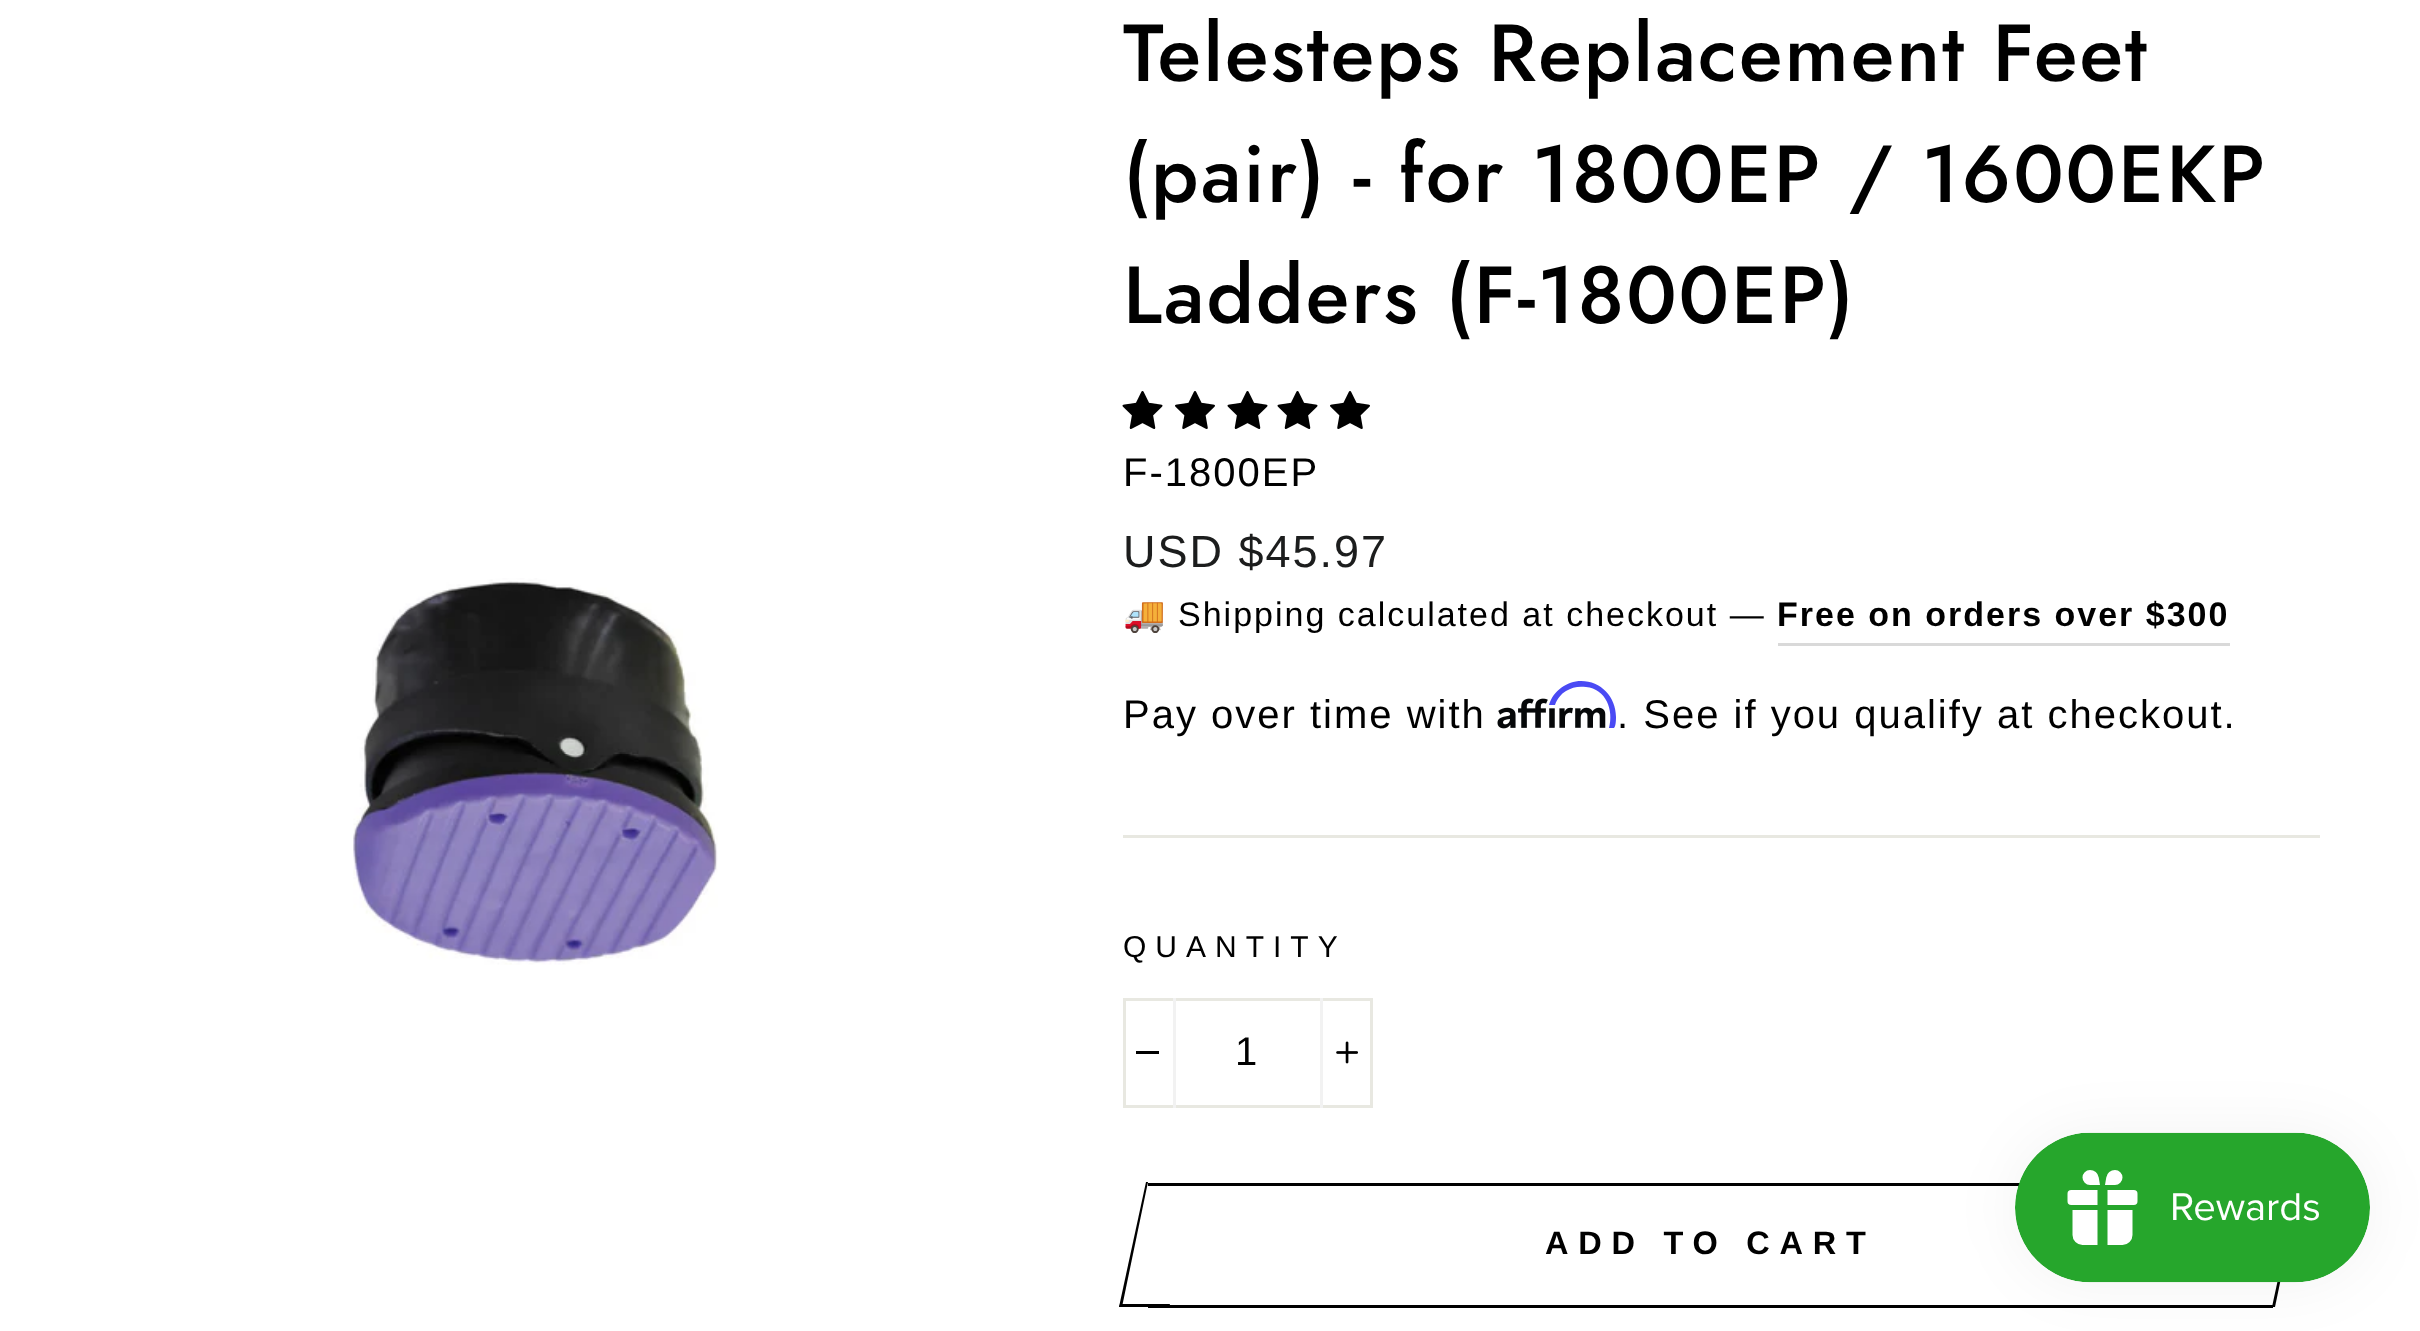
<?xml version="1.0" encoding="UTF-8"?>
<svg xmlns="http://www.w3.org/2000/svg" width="2420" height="1331">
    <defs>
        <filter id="blur1" x="-50%" y="-200%" width="200%" height="500%"><feGaussianBlur stdDeviation="31"/></filter>
    </defs>
    <rect width="100%" height="100%" fill="#FFFFFF"/>
    <image x="353" y="578" width="365" height="387" href="img_01.png"/>
    <text font-family="Jost" font-size="80.75" font-weight="500" letter-spacing="2" fill="#000000">
        <tspan x="1123" y="81">Telesteps Replacement Feet</tspan>
        <tspan x="1123" y="202">(pair) - for 1800EP / 1600EKP</tspan>
        <tspan x="1123" y="323">Ladders (F-1800EP)</tspan>
    </text>
    <image x="1122" y="391" width="41" height="38" href="img_02.png"/>
    <image x="1175" y="391" width="40" height="38" href="img_03.png"/>
    <image x="1227" y="391" width="41" height="38" href="img_02.png"/>
    <image x="1277" y="391" width="41" height="38" href="img_02.png"/>
    <image x="1330" y="391" width="40" height="38" href="img_03.png"/>
    <text x="1123" y="486" font-family="Liberation Sans" font-size="40" letter-spacing="2" fill="#000000">F-1800EP</text>
    <text x="1123" y="567" font-family="Liberation Sans" font-size="45" letter-spacing="2" fill="#1C1D1D">USD $45.97</text>
    <text x="1123" y="626" font-family="Noto Color Emoji" font-size="34" letter-spacing="2" fill="#000000">🚚</text>
    <text x="1178" y="626" font-family="Liberation Sans" font-size="34" letter-spacing="2" fill="#000000">Shipping calculated at checkout —</text>
    <rect x="1778" y="643" width="452" height="3" fill="#D9D9D9"/>
    <text x="1777" y="626" font-family="Liberation Sans" font-size="34" font-weight="700" letter-spacing="2" fill="#000000">Free on orders over $300</text>
    <text x="1123" y="728" font-family="Liberation Sans" font-size="40" letter-spacing="2" fill="#000000">Pay over time with</text>
    <image x="1497" y="698" width="109" height="31" href="img_04.png"/>
    <path d="M 1581 681 C 1567 681 1553 691 1549 705 H 1555 C 1557 699 1561 694 1566 691 C 1572 687 1579 686 1586 687 C 1606 689 1614 710 1609 728 H 1614 C 1616 726 1616 719 1616 717 C 1616 697 1601 681 1581 681 Z" fill="#4A4AF4"/>
    <text x="1617" y="728" font-family="Liberation Sans" font-size="40" letter-spacing="2" fill="#000000">. See if you qualify at checkout.</text>
    <rect x="1123" y="835" width="1197" height="3" fill="#E8E8E1"/>
    <text x="1123" y="957" font-family="Liberation Sans" font-size="30" letter-spacing="9" fill="#000000">QUANTITY</text>
    <rect x="1124.5" y="999.5" width="247" height="107" fill="none" stroke="#E8E8E1" stroke-width="3"/>
    <rect x="1173" y="998" width="3" height="110" fill="#F2F2F2"/>
    <rect x="1136" y="1051" width="23" height="3" fill="#000000"/>
    <text x="1235" y="1065" font-family="Liberation Sans" font-size="40" letter-spacing="2" fill="#000000">1</text>
    <rect x="1320" y="998" width="3" height="110" fill="#F2F2F2"/>
    <image x="1336" y="1041" width="22" height="23" href="img_05.png"/>
    <rect x="1148" y="1183" width="872" height="3" fill="#000000"/>
    <rect x="1148" y="1305" width="1125" height="3" fill="#000000"/>
    <path d="M 1120 1304 H 1170 L 1169 1307 H 1119 Z" fill="#000000"/>
    <path d="M 1146 1182 H 1148 L 1122 1307 H 1119 Z" fill="#000000"/>
    <text x="1545" y="1254" font-family="Liberation Sans" font-size="32.5" font-weight="700" letter-spacing="9.75" fill="#000000">ADD TO CART</text>
    <path d="M 2299 1182 H 2301 L 2275 1307 H 2272 Z" fill="#000000"/>
    <rect x="2015" y="1133" width="355" height="150" rx="75" fill="#000000" fill-opacity="0.05" filter="url(#blur1)"/>
    <image x="2015" y="1132" width="355" height="151" href="img_06.png"/>
</svg>
